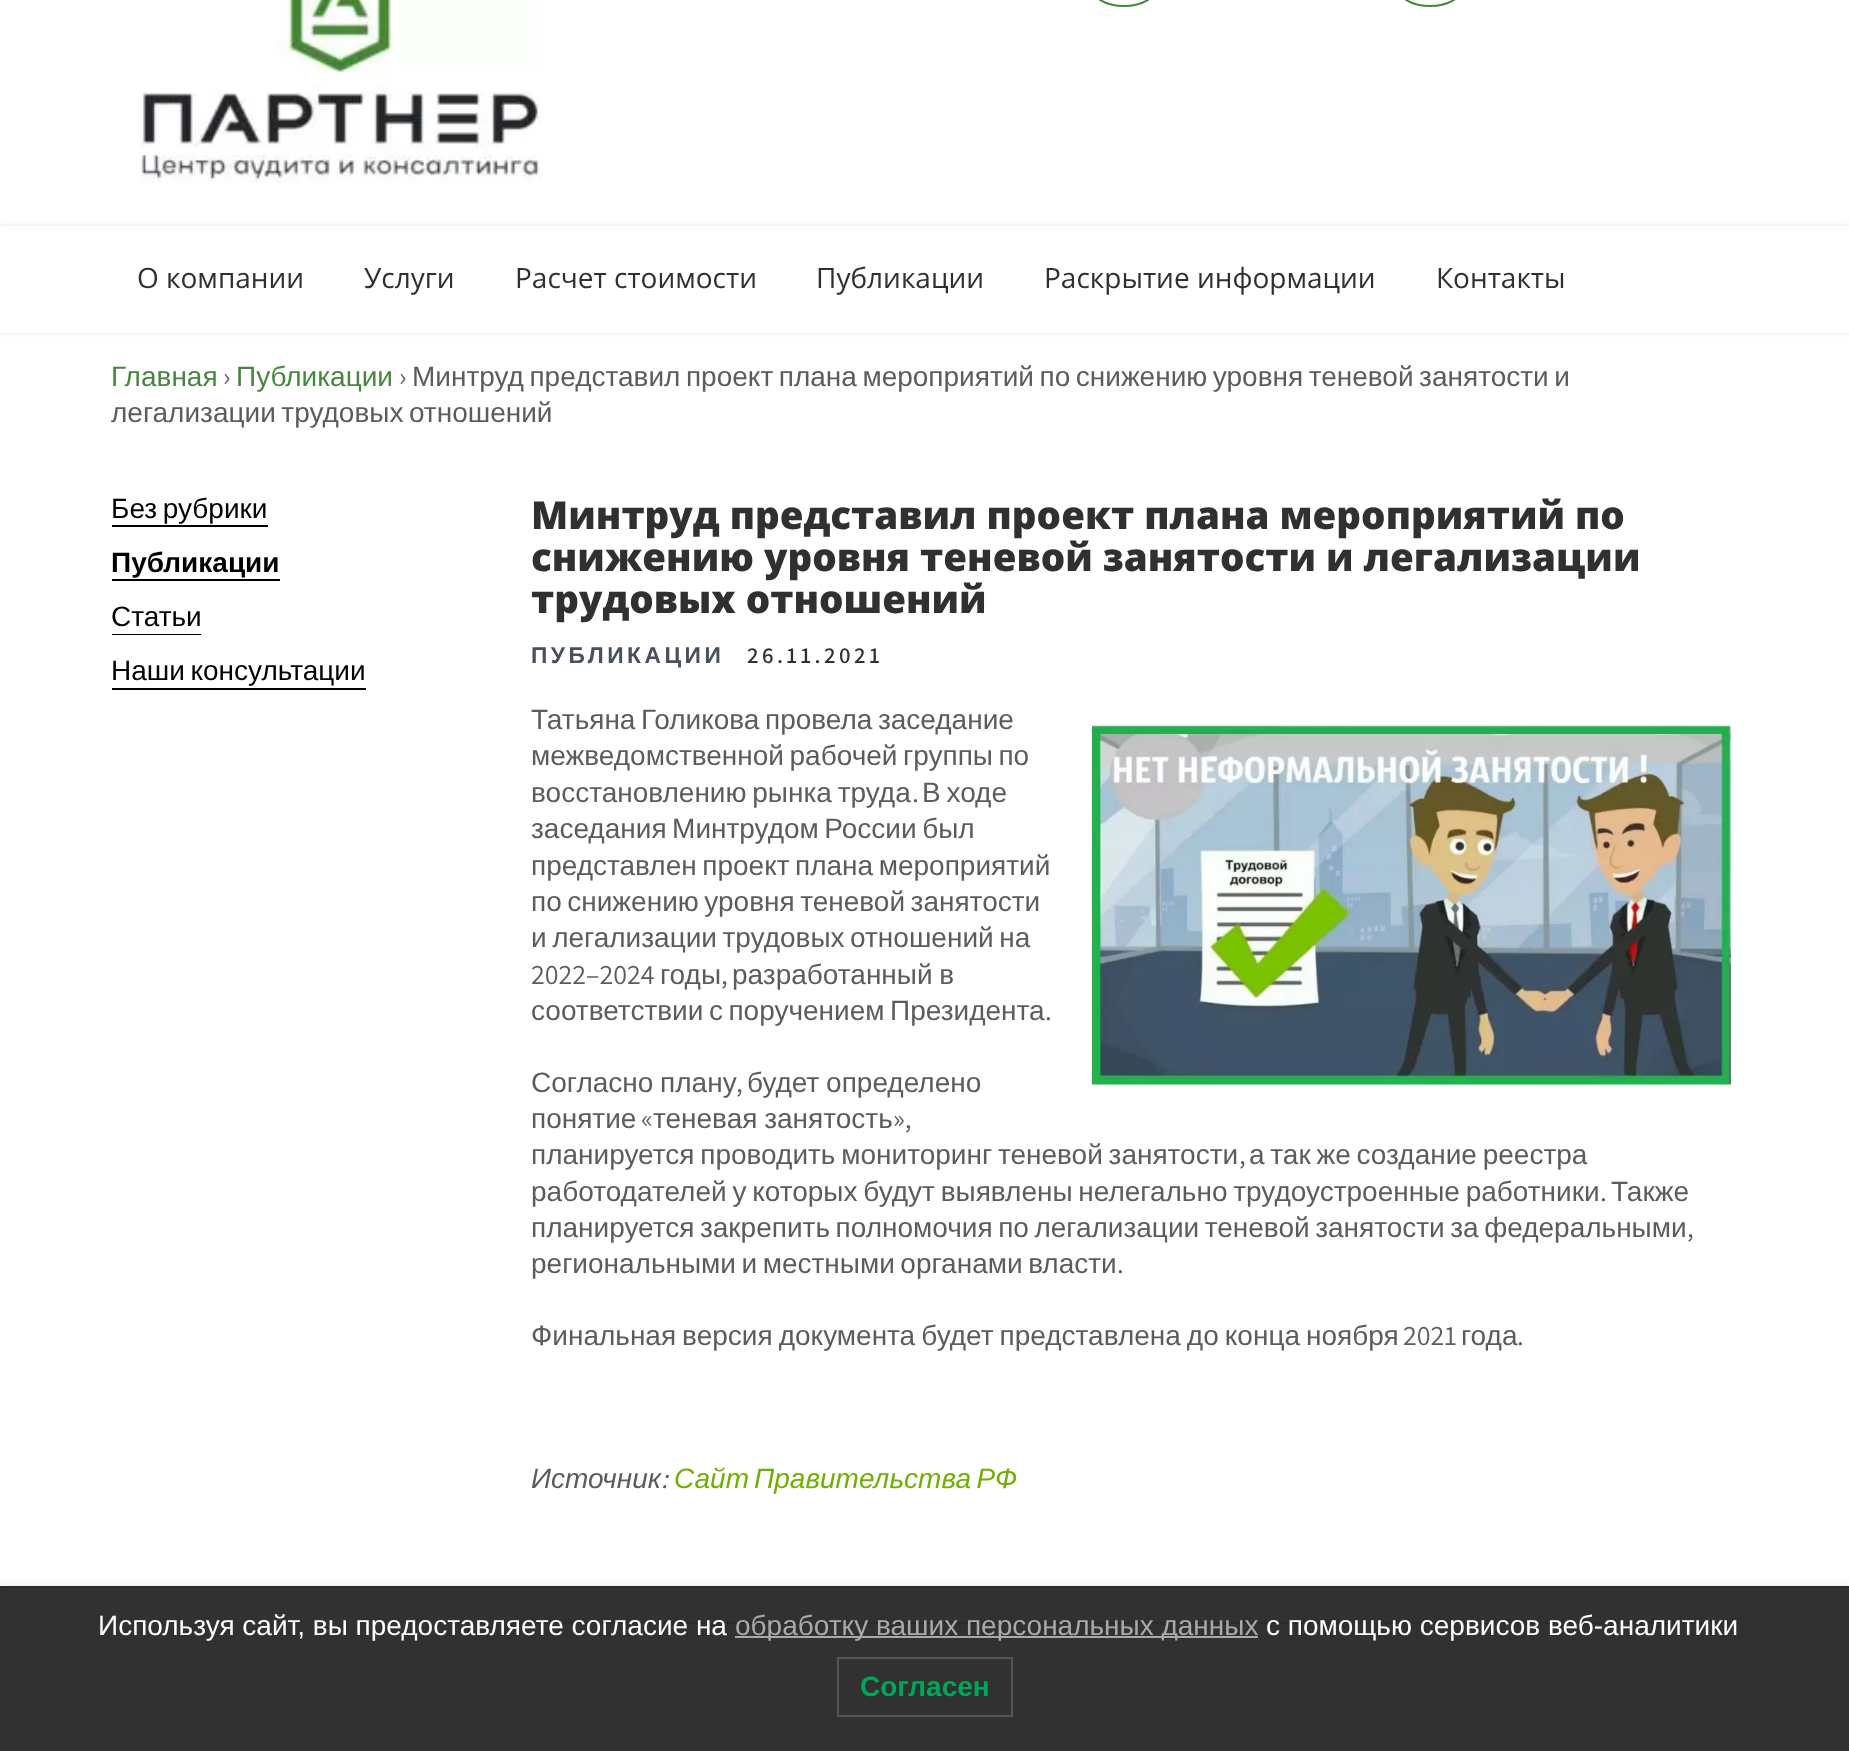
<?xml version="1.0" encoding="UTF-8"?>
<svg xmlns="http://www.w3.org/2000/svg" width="1849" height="1751">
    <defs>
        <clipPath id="clip1"><path d="M 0 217 H 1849 V 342 H 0 Z M 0 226 H 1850 V 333 H 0 Z" clip-rule="evenodd"/></clipPath>
        <filter id="blur1" x="-50%" y="-200%" width="200%" height="500%"><feGaussianBlur stdDeviation="2.5"/></filter>
        <clipPath id="clip2"><rect x="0" y="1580" width="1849" height="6"/></clipPath>
        <filter id="blur2" x="-50%" y="-200%" width="200%" height="500%"><feGaussianBlur stdDeviation="7"/></filter>
    </defs>
    <rect width="100%" height="100%" fill="#FFFFFF"/>
    <rect x="0" y="1588" width="1849" height="163" fill="#313131"/>
    <rect x="1090" y="-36" width="68" height="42" rx="34" fill="none" stroke="#478640" stroke-width="2"/>
    <rect x="1396" y="-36" width="68" height="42" rx="34" fill="none" stroke="#478640" stroke-width="2"/>
    <image x="140" y="0" width="403" height="183" href="img_01.png"/>
    <g clip-path="url(#clip1)">
        <rect x="0" y="226" width="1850" height="107" fill="#DDDDDD" filter="url(#blur1)"/>
    </g>
    <text x="137" y="288" font-family="Open Sans" font-size="28" fill="#303030">О компании</text>
    <text x="364" y="288" font-family="Open Sans" font-size="28" fill="#303030">Услуги</text>
    <text x="515" y="288" font-family="Open Sans" font-size="28" fill="#303030">Расчет стоимости</text>
    <text x="816" y="288" font-family="Open Sans" font-size="28" fill="#303030">Публикации</text>
    <text x="1044" y="288" font-family="Open Sans" font-size="28" fill="#303030">Раскрытие информации</text>
    <text x="1436" y="288" font-family="Open Sans" font-size="28" fill="#303030">Контакты</text>
    <text x="111" y="386" font-family="Liberation Sans" font-size="28" fill="#478640">Главная</text>
    <text x="223" y="386" font-family="Assistant" font-size="28" fill="#5C5C5C">›</text>
    <text x="236" y="386" font-family="Liberation Sans" font-size="28" fill="#478640">Публикации</text>
    <text x="399" y="386" font-family="Assistant" font-size="28" fill="#5C5C5C">›</text>
    <text x="412" y="386" word-spacing="-2.25" font-family="Liberation Sans" font-size="28" fill="#5C5C5C">Минтруд представил проект плана мероприятий по снижению уровня теневой занятости и</text>
    <text x="111" y="422" word-spacing="-2.25" font-family="Liberation Sans" font-size="28" fill="#5C5C5C">легализации трудовых отношений</text>
    <text x="111" y="518" word-spacing="-2.25" font-family="Liberation Sans" font-size="28" fill="#000000">Без рубрики</text>
    <rect x="112" y="525" width="156" height="2" fill="#000000"/>
    <text x="111" y="572" font-family="Liberation Sans" font-size="28" font-weight="700" fill="#000000">Публикации</text>
    <rect x="112" y="579" width="168" height="2" fill="#000000"/>
    <text x="111" y="626" font-family="Liberation Sans" font-size="28" fill="#000000">Статьи</text>
    <rect x="112" y="634" width="89" height="1" fill="#000000"/>
    <text x="111" y="680" word-spacing="-2.25" font-family="Liberation Sans" font-size="28" fill="#000000">Наши консультации</text>
    <rect x="112" y="688" width="254" height="2" fill="#000000"/>
    <rect x="532" y="1622" width="1208" height="2" fill="#2C2C2D"/>
    <text font-family="Open Sans" font-size="38.5" font-weight="800" fill="#303030">
        <tspan x="531" y="529">Минтруд представил проект плана мероприятий по</tspan>
        <tspan x="531" y="571">снижению уровня теневой занятости и легализации</tspan>
        <tspan x="531" y="613">трудовых отношений</tspan>
    </text>
    <text x="531" y="663" font-family="Liberation Sans" font-size="22.75" font-weight="700" letter-spacing="3.5" fill="#484F5E">ПУБЛИКАЦИИ</text>
    <text x="747" y="663" font-family="Assistant" font-size="22.75" font-weight="600" letter-spacing="3.5" fill="#303030">26.11.2021</text>
    <text font-family="Liberation Sans" font-size="28" fill="#5C5C5C">
        <tspan x="531" y="729" word-spacing="-2.25">Татьяна Голикова провела заседание</tspan>
        <tspan x="531" y="765" word-spacing="-2.25">межведомственной рабочей группы по</tspan>
        <tspan x="531" y="802" word-spacing="-2">восстановлению рынка труда</tspan>
    </text>
    <text x="912" y="802" font-family="Assistant" font-size="28" fill="#5C5C5C">.</text>
    <text x="922" y="802" word-spacing="-2" font-family="Liberation Sans" font-size="28" fill="#5C5C5C">В ходе</text>
    <text font-family="Liberation Sans" font-size="28" fill="#5C5C5C">
        <tspan x="531" y="838" word-spacing="-2.25">заседания Минтрудом России был</tspan>
        <tspan x="531" y="875" word-spacing="-2.25">представлен проект плана мероприятий</tspan>
        <tspan x="531" y="911" word-spacing="-2.25">по снижению уровня теневой занятости</tspan>
        <tspan x="531" y="947" word-spacing="-2.25">и легализации трудовых отношений на</tspan>
    </text>
    <text x="531" y="984" font-family="Assistant" font-size="28" fill="#5C5C5C">2022–2024</text>
    <text x="660" y="984" font-family="Liberation Sans" font-size="28" fill="#5C5C5C">годы</text>
    <text x="721" y="984" font-family="Assistant" font-size="28" fill="#5C5C5C">,</text>
    <text x="732" y="984" word-spacing="-1" font-family="Liberation Sans" font-size="28" fill="#5C5C5C">разработанный в</text>
    <text x="531" y="1020" word-spacing="-2.25" font-family="Liberation Sans" font-size="28" fill="#5C5C5C">соответствии с поручением Президента</text>
    <text x="1045" y="1020" font-family="Assistant" font-size="28" fill="#5C5C5C">.</text>
    <image x="1092" y="725" width="639" height="360" href="img_02.png"/>
    <text x="531" y="1092" word-spacing="-1" font-family="Liberation Sans" font-size="28" fill="#5C5C5C">Согласно плану</text>
    <text x="736" y="1092" font-family="Assistant" font-size="28" fill="#5C5C5C">,</text>
    <text x="747" y="1092" word-spacing="-1" font-family="Liberation Sans" font-size="28" fill="#5C5C5C">будет определено</text>
    <text x="531" y="1128" font-family="Liberation Sans" font-size="28" fill="#5C5C5C">понятие</text>
    <text x="641" y="1128" font-family="Assistant" font-size="28" fill="#5C5C5C">«</text>
    <text x="653" y="1128" word-spacing="-1" font-family="Liberation Sans" font-size="28" fill="#5C5C5C">теневая занятость</text>
    <text x="893" y="1128" font-family="Assistant" font-size="28" fill="#5C5C5C">»,</text>
    <text x="531" y="1164" word-spacing="-2" font-family="Liberation Sans" font-size="28" fill="#5C5C5C">планируется проводить мониторинг теневой занятости</text>
    <text x="1239" y="1164" font-family="Assistant" font-size="28" fill="#5C5C5C">,</text>
    <text x="1249" y="1164" word-spacing="-2" font-family="Liberation Sans" font-size="28" fill="#5C5C5C">а так же создание реестра</text>
    <text x="531" y="1201" word-spacing="-2" font-family="Liberation Sans" font-size="28" fill="#5C5C5C">работодателей у которых будут выявлены нелегально трудоустроенные работники</text>
    <text x="1600" y="1201" font-family="Assistant" font-size="28" fill="#5C5C5C">.</text>
    <text x="1611" y="1201" font-family="Liberation Sans" font-size="28" fill="#5C5C5C">Также</text>
    <text x="531" y="1237" word-spacing="-2.25" font-family="Liberation Sans" font-size="28" fill="#5C5C5C">планируется закрепить полномочия по легализации теневой занятости за федеральными</text>
    <text x="1687" y="1237" font-family="Assistant" font-size="28" fill="#5C5C5C">,</text>
    <text x="531" y="1273" word-spacing="-2.25" font-family="Liberation Sans" font-size="28" fill="#5C5C5C">региональными и местными органами власти</text>
    <text x="1117" y="1273" font-family="Assistant" font-size="28" fill="#5C5C5C">.</text>
    <text x="531" y="1345" word-spacing="-1.75" font-family="Liberation Sans" font-size="28" fill="#5C5C5C">Финальная версия документа будет представлена до конца ноября</text>
    <text x="1403" y="1345" font-family="Assistant" font-size="28" fill="#5C5C5C">2021</text>
    <text x="1461" y="1345" font-family="Liberation Sans" font-size="28" fill="#5C5C5C">года</text>
    <text x="1517" y="1345" font-family="Assistant" font-size="28" fill="#5C5C5C">.</text>
    <text x="531" y="1488" font-family="Liberation Sans" font-size="28" font-style="italic" fill="#5C5C5C">Источник</text>
    <text x="661" y="1488" font-family="Assistant" font-size="28" font-style="italic" fill="#5C5C5C">:</text>
    <text x="674" y="1488" font-family="Liberation Sans" font-size="28" font-style="italic" fill="#71B002">Сайт</text>
    <text x="754" y="1488" word-spacing="-2.25" font-family="Liberation Sans" font-size="28" font-style="italic" fill="#71B002">Правительства РФ</text>
    <g clip-path="url(#clip2)">
        <rect x="0" y="1586" width="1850" height="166" fill="#000000" fill-opacity="0.1" filter="url(#blur2)"/>
    </g>
    <rect x="0" y="1586" width="1849" height="2" fill="#2B2B2B"/>
    <text x="98" y="1635" font-family="Liberation Sans" font-size="28" fill="#FFFFFF">Используя сайт, вы предоставляете согласие на</text>
    <rect x="735" y="1636" width="523" height="2" fill="#AAAAAA"/>
    <text x="735" y="1635" font-family="Liberation Sans" font-size="28" fill="#AAAAAA">обработку ваших персональных данных</text>
    <text x="1266" y="1635" font-family="Liberation Sans" font-size="28" fill="#FFFFFF">с помощью сервисов веб-аналитики</text>
    <rect x="838" y="1658" width="174" height="58" fill="none" stroke="#555555" stroke-width="2"/>
    <text x="860" y="1696" font-family="Liberation Sans" font-size="28" font-weight="700" fill="#00A65A">Согласен</text>
</svg>
